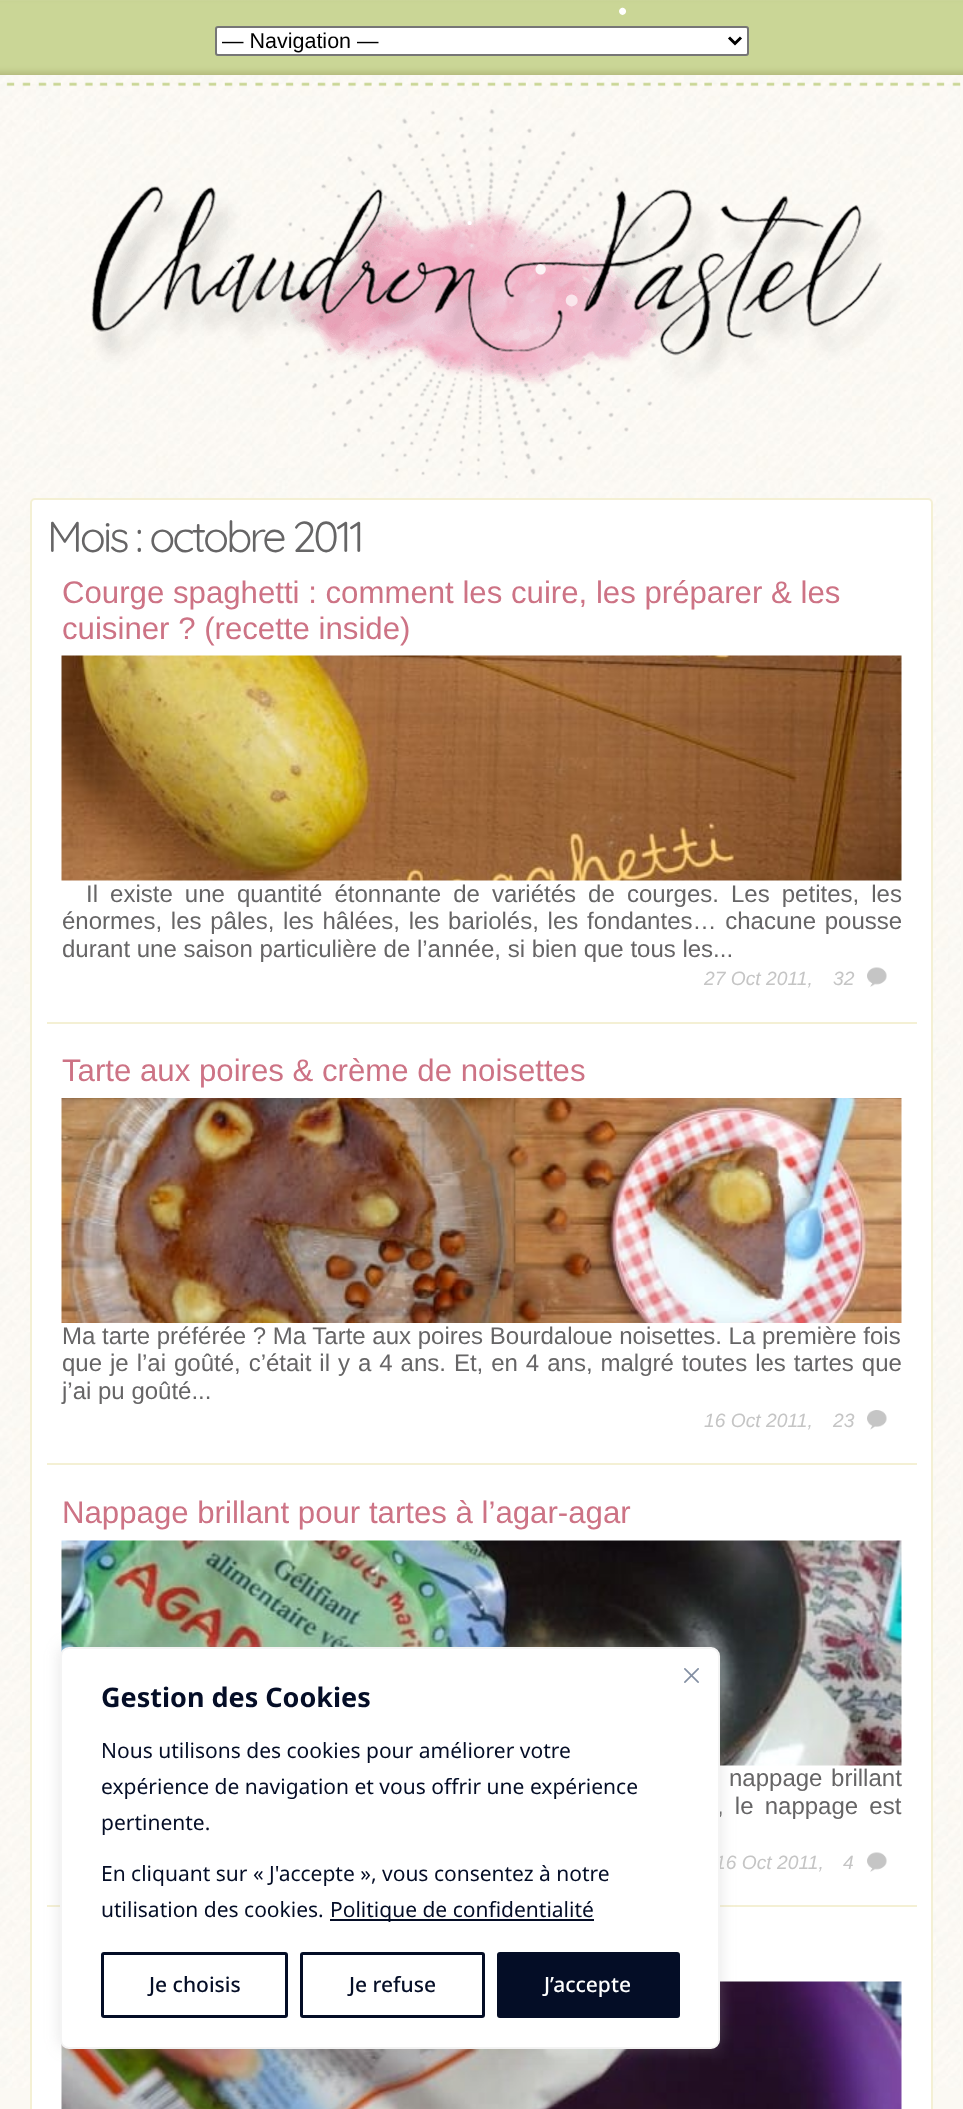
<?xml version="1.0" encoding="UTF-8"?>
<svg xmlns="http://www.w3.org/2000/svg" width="963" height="2109">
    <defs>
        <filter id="blur1" x="-50%" y="-200%" width="200%" height="500%"><feGaussianBlur stdDeviation="7.5"/></filter>
    </defs>
    <rect width="100%" height="100%" fill="#FBF9F3"/>
    <image x="0" y="75" width="961" height="2013" href="img_01.png"/>
    <image x="0" y="0" width="963" height="87" href="img_02.png"/>
    <text x="618" y="20" font-family="Liberation Sans" font-size="26" fill="#FFFFFF">•</text>
    <image x="91" y="109" width="856" height="370" href="img_03.png"/>
    <text x="467" y="228" font-family="Liberation Sans" font-size="15" fill="#FFFFFF">•</text>
    <text x="231" y="272" font-family="Liberation Sans" font-size="24" fill="#EBEBEA">•</text>
    <text x="534" y="282" font-family="Liberation Sans" font-size="38" fill="#FCF4F6">•</text>
    <text x="564" y="315" font-family="Liberation Sans" font-size="44" fill="#FAE6EC">•</text>
    <rect x="216" y="27" width="532" height="28" rx="2" fill="#FFFFFF" stroke="#767676" stroke-width="2"/>
    <path d="M 729 37.5 L 735 43.5 L 741 37.5" fill="none" stroke="#000000" stroke-width="3"/>
    <text x="222" y="48" font-family="Liberation Sans" font-size="21.5" fill="#000000">— Navigation —</text>
    <rect x="31" y="499" width="901" height="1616" rx="4" fill="#FFFFFF" stroke="#F4F0D4" stroke-width="2"/>
    <text x="47" y="552" font-family="Quicksand" font-size="43.25" font-weight="300" letter-spacing="-3" fill="#666566">Mois : octobre 2011</text>
    <rect x="47" y="1022" width="870" height="2" fill="#F4F0D4"/>
    <text font-family="Liberation Sans" font-size="31.2" fill="#CD7385">
        <tspan x="62" y="603">Courge spaghetti : comment les cuire, les préparer &amp; les</tspan>
        <tspan x="62" y="639">cuisiner ? (recette inside)</tspan>
    </text>
    <image x="61" y="655" width="841" height="226" href="img_04.png"/>
    <text x="86" y="902" word-spacing="5.4" font-family="Liberation Sans" font-size="24" fill="#666566">Il existe une quantité étonnante de variétés de courges. Les petites, les</text>
    <text font-family="Liberation Sans" font-size="24" fill="#666566">
        <tspan x="62" y="929" word-spacing="2.1">énormes, les pâles, les hâlées, les bariolés, les fondantes… chacune pousse</tspan>
        <tspan x="62" y="957">durant une saison particulière de l’année, si bien que tous les...</tspan>
    </text>
    <text x="704" y="985" font-family="Liberation Sans" font-size="19.25" font-style="italic" fill="#C5C5C5">27 Oct 2011,</text>
    <text x="833" y="985" font-family="Liberation Sans" font-size="19.25" font-style="italic" fill="#C5C5C5">32</text>
    <image x="867" y="967" width="20" height="20" href="img_05.png"/>
    <rect x="47" y="1463" width="870" height="2" fill="#F4F0D4"/>
    <text x="62" y="1081" font-family="Liberation Sans" font-size="31.2" fill="#CD7385">Tarte aux poires &amp; crème de noisettes</text>
    <image x="61" y="1098" width="841" height="225" href="img_06.png"/>
    <text font-family="Liberation Sans" font-size="24" fill="#666566">
        <tspan x="62" y="1344">Ma tarte préférée ? Ma Tarte aux poires Bourdaloue noisettes. La première fois</tspan>
        <tspan x="62" y="1371" word-spacing="1.3">que je l’ai goûté, c’était il y a 4 ans. Et, en 4 ans, malgré toutes les tartes que</tspan>
        <tspan x="62" y="1399">j’ai pu goûté...</tspan>
    </text>
    <text x="704" y="1427" font-family="Liberation Sans" font-size="19.25" font-style="italic" fill="#C5C5C5">16 Oct 2011,</text>
    <text x="833" y="1427" font-family="Liberation Sans" font-size="19.25" font-style="italic" fill="#C5C5C5">23</text>
    <image x="867" y="1410" width="20" height="20" href="img_07.png"/>
    <rect x="47" y="1905" width="870" height="2" fill="#F4F0D4"/>
    <text x="62" y="1523" font-family="Liberation Sans" font-size="31.2" fill="#CD7385">Nappage brillant pour tartes à l’agar-agar</text>
    <image x="61" y="1540" width="841" height="226" href="img_08.png"/>
    <text x="729" y="1786" word-spacing="2" font-family="Liberation Sans" font-size="24" fill="#666566">nappage brillant</text>
    <text x="717" y="1814" word-spacing="4.5" font-family="Liberation Sans" font-size="24" fill="#666566">, le nappage est</text>
    <text x="715" y="1869" font-family="Liberation Sans" font-size="19.25" font-style="italic" fill="#C5C5C5">16 Oct 2011,</text>
    <text x="843" y="1869" font-family="Liberation Sans" font-size="19.25" font-style="italic" fill="#C5C5C5">4</text>
    <image x="867" y="1852" width="20" height="20" href="img_05.png"/>
    <image x="61" y="1981" width="841" height="128" href="img_09.png"/>
    <rect x="60" y="1646" width="660" height="402" rx="9" fill="#ACABAB" fill-opacity="0.3" filter="url(#blur1)"/>
    <rect x="61" y="1648" width="658" height="400" rx="8" fill="#FFFFFF" stroke="#F4F4F4" stroke-width="2"/>
    <image x="684" y="1668" width="15" height="15" href="img_10.png"/>
    <text x="101" y="1707" font-family="Noto Sans" font-size="27" font-weight="700" fill="#040D26">Gestion des Cookies</text>
    <text font-family="Noto Sans" font-size="21" fill="#040D26">
        <tspan x="101" y="1758">Nous utilisons des cookies pour améliorer votre</tspan>
        <tspan x="101" y="1794">expérience de navigation et vous offrir une expérience</tspan>
        <tspan x="101" y="1830">pertinente.</tspan>
    </text>
    <text font-family="Noto Sans" font-size="21" fill="#040D26">
        <tspan x="101" y="1881">En cliquant sur « J'accepte », vous consentez à notre</tspan>
        <tspan x="101" y="1917">utilisation des cookies.</tspan>
    </text>
    <rect x="330" y="1919" width="264" height="2" fill="#040D26"/>
    <text x="330" y="1917" font-family="Noto Sans" font-size="21" fill="#040D26">Politique de confidentialité</text>
    <rect x="102.5" y="1953.5" width="184" height="63" rx="1.5" fill="none" stroke="#040D26" stroke-width="3"/>
    <text x="149" y="1992" font-family="Noto Sans" font-size="21" font-weight="500" fill="#040D26">Je choisis</text>
    <rect x="301.5" y="1953.5" width="182" height="63" rx="1.5" fill="none" stroke="#040D26" stroke-width="3"/>
    <text x="349" y="1992" font-family="Noto Sans" font-size="21" font-weight="500" fill="#040D26">Je refuse</text>
    <rect x="498.5" y="1953.5" width="180" height="63" rx="1.5" fill="#040D26" stroke="#040D26" stroke-width="3"/>
    <text x="544" y="1992" font-family="Noto Sans" font-size="21" font-weight="500" fill="#FFFFFF">J’accepte</text>
</svg>
